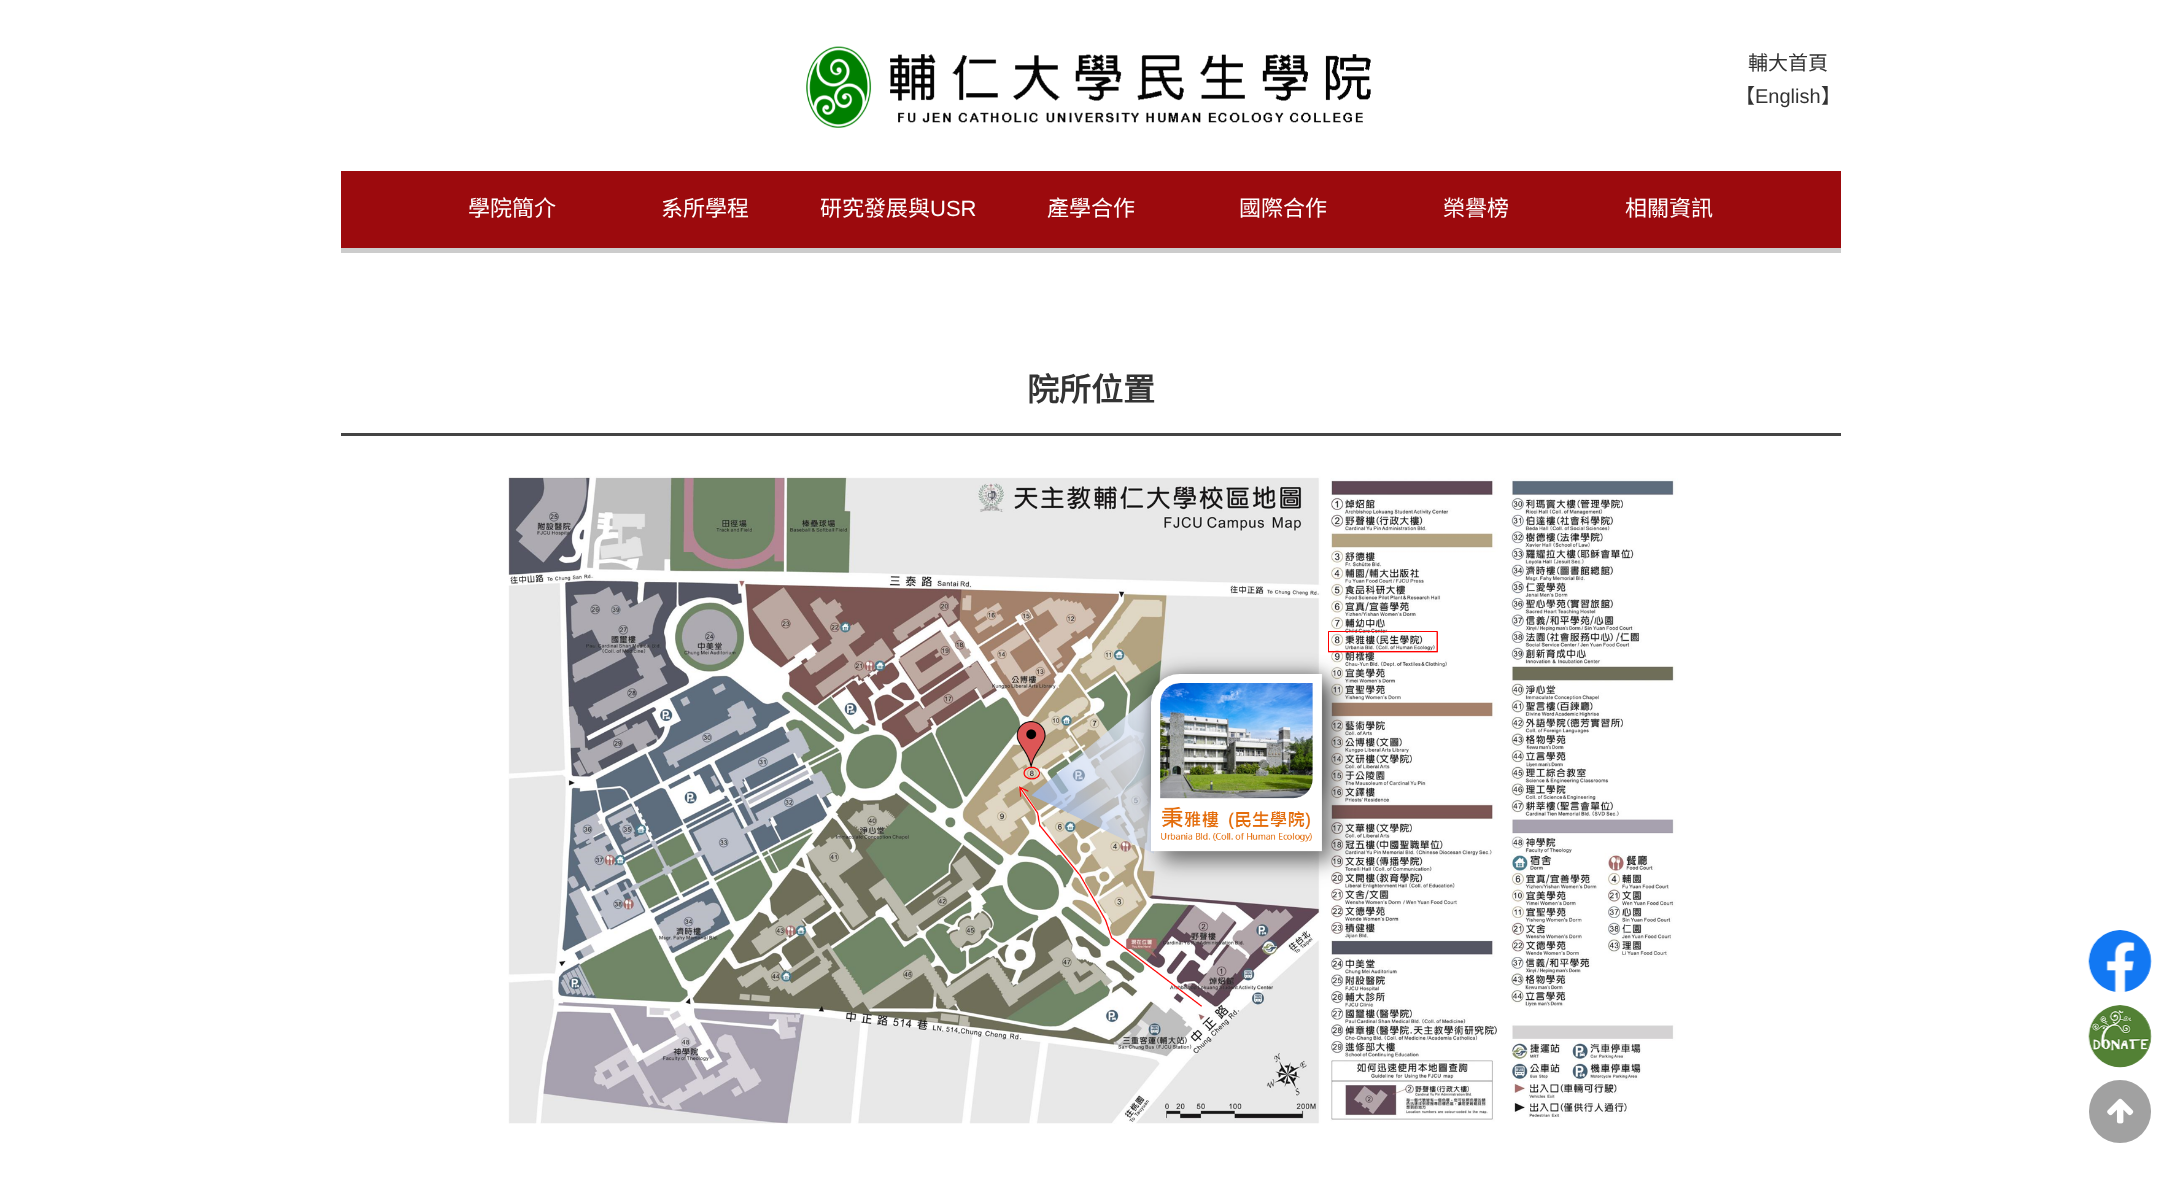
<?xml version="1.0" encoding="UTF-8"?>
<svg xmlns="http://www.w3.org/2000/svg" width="2181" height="1184">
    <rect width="100%" height="100%" fill="#FFFFFF"/>
    <rect x="341" y="248" width="1500" height="5" fill="#CCCCCC"/>
    <image x="806" y="46" width="565" height="82" href="img_01.png"/>
    <text x="1748" y="70" font-family="Noto Sans CJK TC" font-size="20" fill="#333333">輔大首頁</text>
    <text x="1735" y="103" font-family="Noto Sans CJK TC" font-size="20" fill="#333333">【</text>
    <text x="1755" y="103" font-family="Liberation Sans" font-size="20" fill="#333333">English</text>
    <text x="1821" y="103" font-family="Noto Sans CJK TC" font-size="20" fill="#333333">】</text>
    <rect x="341" y="171" width="1500" height="77" fill="#9C0A0D"/>
    <text x="468" y="216" font-family="Noto Sans CJK TC" font-size="22" fill="#FFFFFF">學院簡介</text>
    <text x="661" y="216" font-family="Noto Sans CJK TC" font-size="22" fill="#FFFFFF">系所學程</text>
    <text x="820" y="216" font-family="Noto Sans CJK TC" font-size="22" fill="#FFFFFF">研究發展與</text>
    <text x="930" y="216" font-family="Liberation Sans" font-size="22" fill="#FFFFFF">USR</text>
    <text x="1047" y="216" font-family="Noto Sans CJK TC" font-size="22" fill="#FFFFFF">產學合作</text>
    <text x="1239" y="216" font-family="Noto Sans CJK TC" font-size="22" fill="#FFFFFF">國際合作</text>
    <text x="1443" y="216" font-family="Noto Sans CJK TC" font-size="22" fill="#FFFFFF">榮譽榜</text>
    <text x="1625" y="216" font-family="Noto Sans CJK TC" font-size="22" fill="#FFFFFF">相關資訊</text>
    <image x="2088" y="930" width="64" height="62" href="img_02.png"/>
    <image x="2088" y="1005" width="64" height="63" href="img_03.png"/>
    <rect x="2089" y="1080" width="62" height="63" rx="31" fill="#A1A1A1"/>
    <image x="2107" y="1098" width="27" height="26" href="img_04.png"/>
    <rect x="341" y="433" width="1500" height="3" fill="#444444"/>
    <text x="1027" y="401" font-family="Noto Sans CJK TC" font-size="32" font-weight="700" fill="#333333">院所位置</text>
    <image x="508" y="476" width="1170" height="648" href="img_05.png"/>
</svg>
